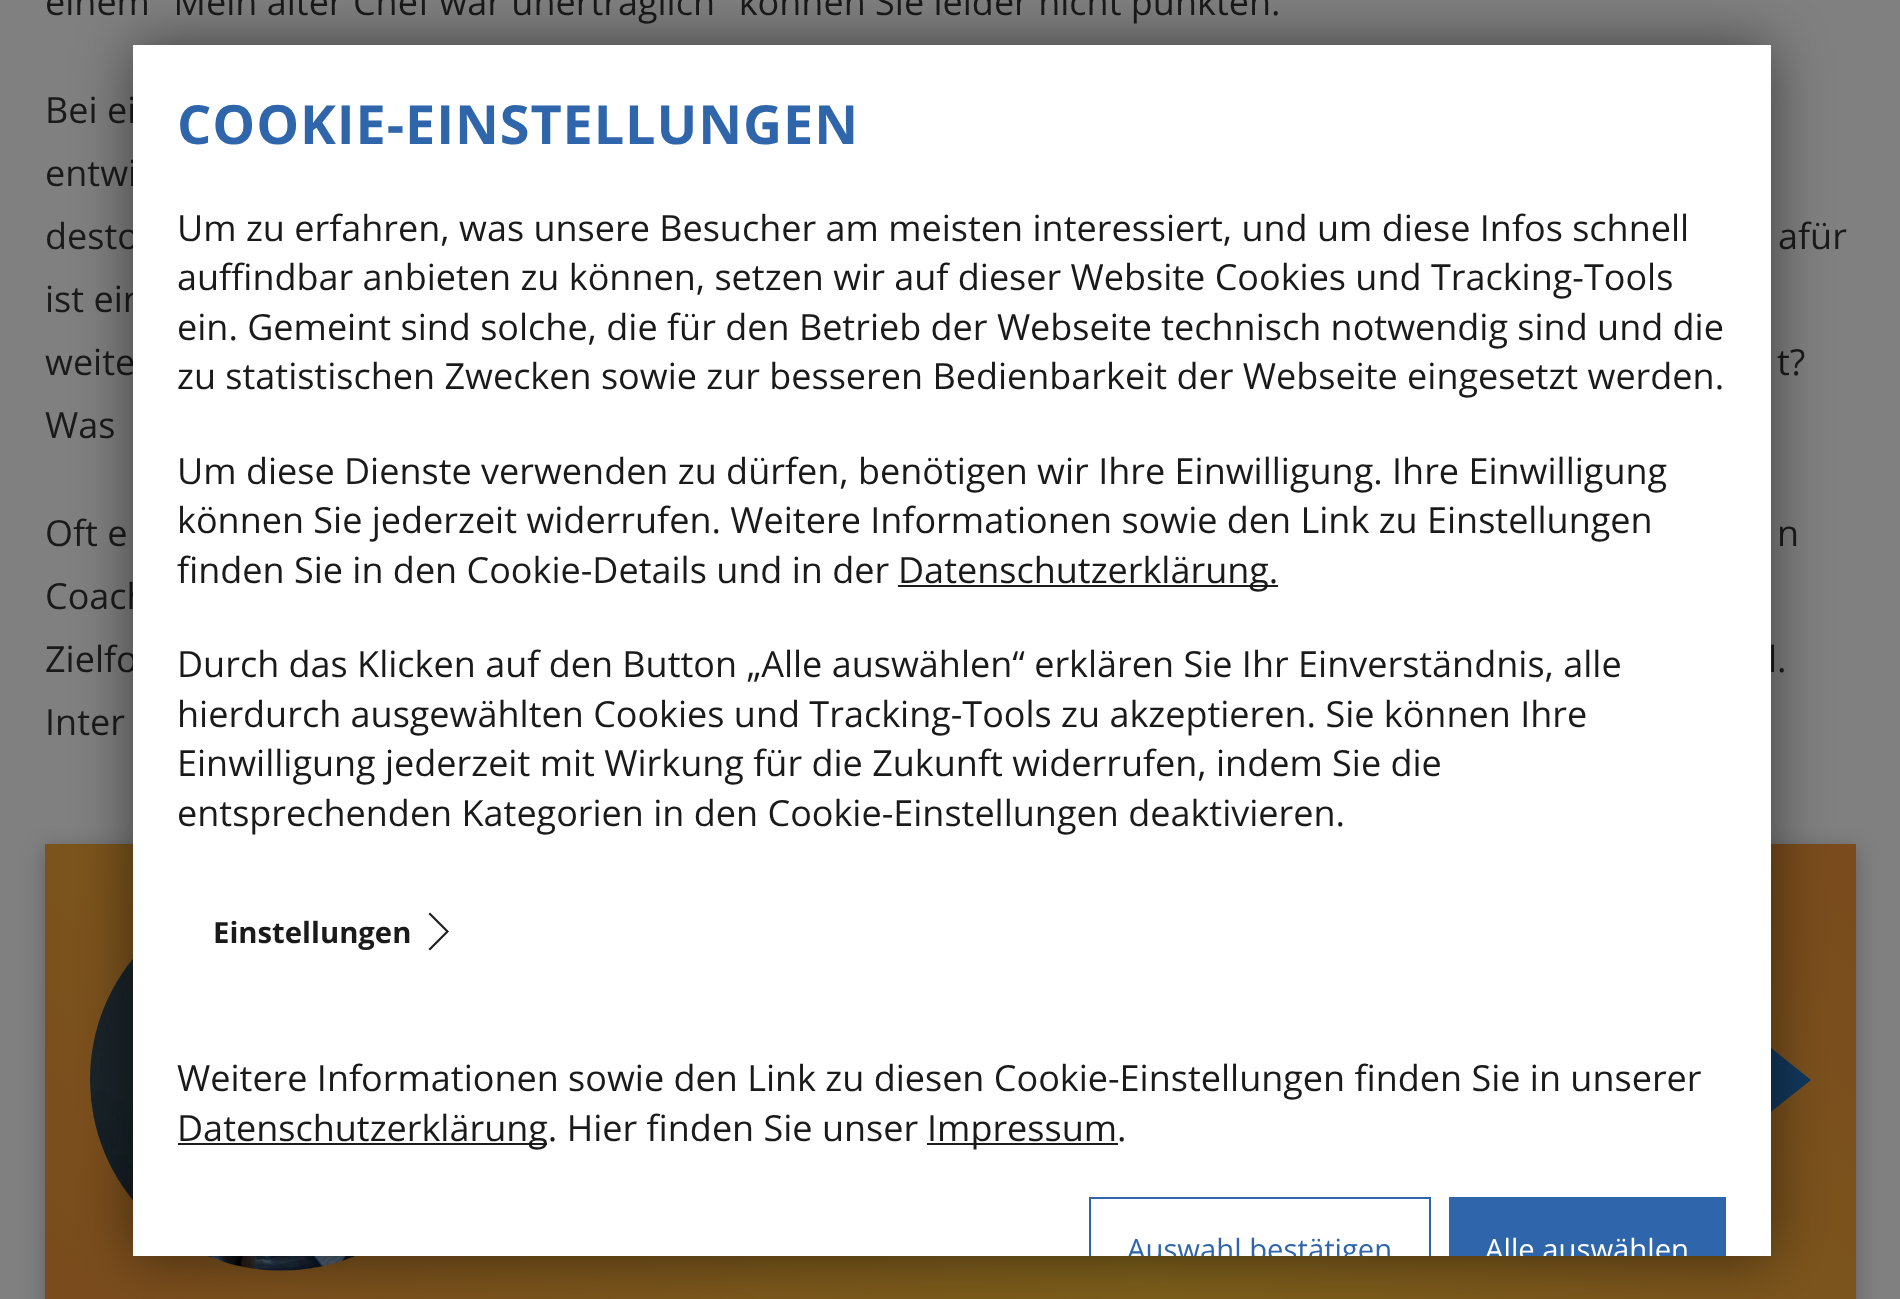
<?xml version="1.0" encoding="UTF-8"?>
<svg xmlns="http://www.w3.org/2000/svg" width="1900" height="1299">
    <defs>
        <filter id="blur1" x="-50%" y="-200%" width="200%" height="500%"><feGaussianBlur stdDeviation="11"/></filter>
        <linearGradient id="g1" gradientUnits="userSpaceOnUse" x1="380" y1="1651" x2="1522" y2="509"><stop offset="0" stop-color="#7A4B1D"/><stop offset="0.5" stop-color="#7D5F1B"/><stop offset="1" stop-color="#7A4B1D"/></linearGradient>
        <linearGradient id="g2" gradientUnits="userSpaceOnUse" x1="1451" y1="1080" x2="1811" y2="1080"><stop offset="0" stop-color="#0F2447"/><stop offset="0.75" stop-color="#193456"/><stop offset="1" stop-color="#0F385C"/></linearGradient>
        <filter id="blur2" x="-50%" y="-200%" width="200%" height="500%"><feGaussianBlur stdDeviation="28"/></filter>
        <clipPath id="clip1"><rect x="133" y="45" width="1638" height="1211"/></clipPath>
    </defs>
    <rect width="100%" height="100%" fill="#808080"/>
    <text x="45" y="15" font-family="Open Sans" font-size="36" fill="#1A1A1A">einem "Mein alter Chef war unerträglich" können Sie leider nicht punkten.</text>
    <text font-family="Open Sans" font-size="36" fill="#1A1A1A">
        <tspan x="45" y="123">Bei ei</tspan>
        <tspan x="45" y="186">entwi</tspan>
        <tspan x="45" y="249">desto</tspan>
    </text>
    <text x="1778" y="249" font-family="Open Sans" font-size="36" fill="#1A1A1A">afür</text>
    <text font-family="Open Sans" font-size="36" fill="#1A1A1A">
        <tspan x="45" y="312">ist ein</tspan>
        <tspan x="45" y="375">weite</tspan>
    </text>
    <text x="1777" y="375" font-family="Open Sans" font-size="36" fill="#1A1A1A">t?</text>
    <text x="45" y="438" font-family="Open Sans" font-size="36" fill="#1A1A1A">Was</text>
    <text x="45" y="546" font-family="Open Sans" font-size="36" fill="#1A1A1A">Oft e</text>
    <text x="1777" y="546" font-family="Open Sans" font-size="36" fill="#1A1A1A">n</text>
    <text font-family="Open Sans" font-size="36" fill="#1A1A1A">
        <tspan x="45" y="609">Coach</tspan>
        <tspan x="45" y="672">Zielfo</tspan>
    </text>
    <text x="1768" y="672" font-family="Open Sans" font-size="36" fill="#1A1A1A">l.</text>
    <text x="45" y="735" font-family="Open Sans" font-size="36" fill="#1A1A1A">Inter</text>
    <rect x="45" y="848" width="1811" height="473" fill="#000000" fill-opacity="0.25" filter="url(#blur1)"/>
    <rect x="45" y="844" width="1811" height="455" fill="url(#g1)"/>
    <image x="90" y="958" width="265" height="313" href="img_01.png"/>
    <path d="M 1451 1010 V 1149 H 1667 V 1195 L 1811 1080 L 1668 965 H 1667 V 1010 Z" fill="url(#g2)"/>
    <rect x="133" y="45" width="1638" height="1211" fill="#000000" fill-opacity="0.5" filter="url(#blur2)"/>
    <rect x="133" y="45" width="1638" height="1211" fill="#FFFFFF"/>
    <text x="177" y="144" font-family="Open Sans" font-size="54" font-weight="700" letter-spacing="0.9" fill="#2F66AB">COOKIE-EINSTELLUNGEN</text>
    <text font-family="Open Sans" font-size="36" fill="#1A1A1A">
        <tspan x="177" y="241">Um zu erfahren, was unsere Besucher am meisten interessiert, und um diese Infos schnell</tspan>
        <tspan x="177" y="290">auffindbar anbieten zu können, setzen wir auf dieser Website Cookies und Tracking-Tools</tspan>
        <tspan x="177" y="340">ein. Gemeint sind solche, die für den Betrieb der Webseite technisch notwendig sind und die</tspan>
        <tspan x="177" y="389">zu statistischen Zwecken sowie zur besseren Bedienbarkeit der Webseite eingesetzt werden.</tspan>
    </text>
    <text font-family="Open Sans" font-size="36" fill="#1A1A1A">
        <tspan x="177" y="484">Um diese Dienste verwenden zu dürfen, benötigen wir Ihre Einwilligung. Ihre Einwilligung</tspan>
        <tspan x="177" y="533">können Sie jederzeit widerrufen. Weitere Informationen sowie den Link zu Einstellungen</tspan>
        <tspan x="177" y="583">finden Sie in den Cookie-Details und in der</tspan>
    </text>
    <rect x="898" y="585" width="380" height="2" fill="#1D1D1D"/>
    <text x="898" y="583" font-family="Open Sans" font-size="36" fill="#1A1A1A">Datenschutzerklärung.</text>
    <text font-family="Open Sans" font-size="36" fill="#1A1A1A">
        <tspan x="177" y="677">Durch das Klicken auf den Button „Alle auswählen“ erklären Sie Ihr Einverständnis, alle</tspan>
        <tspan x="177" y="727">hierdurch ausgewählten Cookies und Tracking-Tools zu akzeptieren. Sie können Ihre</tspan>
        <tspan x="177" y="776">Einwilligung jederzeit mit Wirkung für die Zukunft widerrufen, indem Sie die</tspan>
        <tspan x="177" y="826">entsprechenden Kategorien in den Cookie-Einstellungen deaktivieren.</tspan>
    </text>
    <text x="213" y="943" font-family="Open Sans" font-size="29.25" font-weight="700" fill="#1A1A1A">Einstellungen</text>
    <path d="M 430 912.5 L 449 931.5 L 430 950.5 L 428.5 949 L 446 931.5 L 428.5 914 Z" fill="#1D1D1D"/>
    <text x="177" y="1091" font-family="Open Sans" font-size="36" fill="#1A1A1A">Weitere Informationen sowie den Link zu diesen Cookie-Einstellungen finden Sie in unserer</text>
    <rect x="178" y="1143" width="369" height="2" fill="#1D1D1D"/>
    <text x="177" y="1141" font-family="Open Sans" font-size="36" fill="#1A1A1A">Datenschutzerklärung. Hier finden Sie unser</text>
    <rect x="927" y="1143" width="191" height="2" fill="#1D1D1D"/>
    <text x="927" y="1141" font-family="Open Sans" font-size="36" fill="#1A1A1A">Impressum.</text>
    <g clip-path="url(#clip1)">
        <rect x="1090" y="1198" width="340" height="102" fill="none" stroke="#2F66AB" stroke-width="2"/>
        <text x="1127" y="1260" font-family="Open Sans" font-size="29.25" fill="#2F66AB">Auswahl bestätigen</text>
    </g>
    <rect x="1449" y="1197" width="277" height="59" fill="#2F66AB"/>
    <g clip-path="url(#clip1)">
        <text x="1485" y="1260" font-family="Open Sans" font-size="29.25" fill="#FFFFFF">Alle auswählen</text>
    </g>
</svg>
